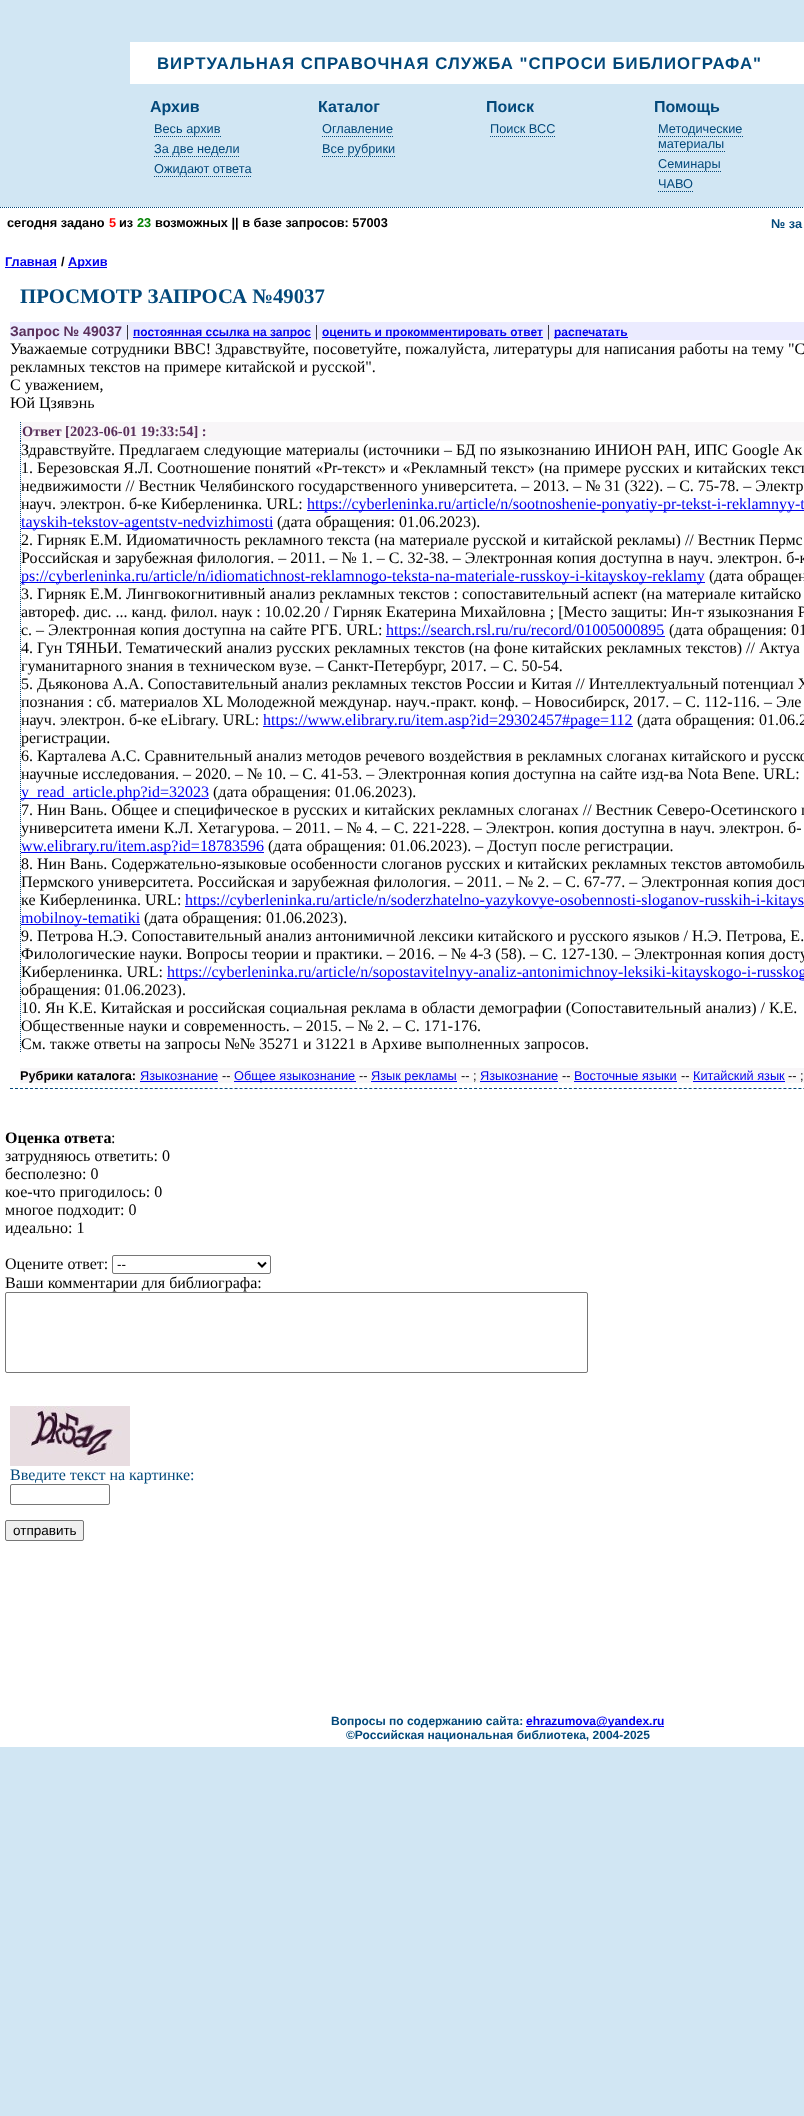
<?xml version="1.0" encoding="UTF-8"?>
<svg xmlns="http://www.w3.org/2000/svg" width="804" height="2116">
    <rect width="100%" height="100%" fill="#D1E6F3"/>
    <rect x="130" y="42" width="674" height="42" fill="#FFFFFF"/>
    <text x="157" y="69" font-family="Liberation Sans" font-size="16.8" font-weight="700" letter-spacing="1" fill="#03497B">ВИРТУАЛЬНАЯ СПРАВОЧНАЯ СЛУЖБА "СПРОСИ БИБЛИОГРАФА"</text>
    <text x="150" y="112" font-family="Liberation Sans" font-size="16" font-weight="700" fill="#03497B">Архив</text>
    <text x="318" y="112" font-family="Liberation Sans" font-size="16" font-weight="700" fill="#03497B">Каталог</text>
    <text x="486" y="112" font-family="Liberation Sans" font-size="16" font-weight="700" fill="#03497B">Поиск</text>
    <text x="654" y="112" font-family="Liberation Sans" font-size="16" font-weight="700" fill="#03497B">Помощь</text>
    <text x="154" y="133" font-family="Liberation Sans" font-size="12.75" fill="#03497B">Весь архив</text>
    <path d="M 154 136.5 H 221" fill="none" stroke="#03497B" stroke-dasharray="1 1"/>
    <text x="154" y="153" font-family="Liberation Sans" font-size="12.75" fill="#03497B">За две недели</text>
    <path d="M 154 156.5 H 240" fill="none" stroke="#03497B" stroke-dasharray="1 1"/>
    <text x="154" y="173" font-family="Liberation Sans" font-size="12.75" fill="#03497B">Ожидают ответа</text>
    <path d="M 154 176.5 H 252" fill="none" stroke="#03497B" stroke-dasharray="1 1"/>
    <text x="322" y="133" font-family="Liberation Sans" font-size="12.75" fill="#03497B">Оглавление</text>
    <path d="M 322 136.5 H 393" fill="none" stroke="#03497B" stroke-dasharray="1 1"/>
    <text x="322" y="153" font-family="Liberation Sans" font-size="12.75" fill="#03497B">Все рубрики</text>
    <path d="M 322 156.5 H 395" fill="none" stroke="#03497B" stroke-dasharray="1 1"/>
    <text x="490" y="133" font-family="Liberation Sans" font-size="12.75" fill="#03497B">Поиск ВСС</text>
    <path d="M 490 136.5 H 556" fill="none" stroke="#03497B" stroke-dasharray="1 1"/>
    <text x="658" y="133" font-family="Liberation Sans" font-size="12.75" fill="#03497B">Методические</text>
    <path d="M 658 136.5 H 743" fill="none" stroke="#03497B" stroke-dasharray="1 1"/>
    <text x="658" y="148" font-family="Liberation Sans" font-size="12.75" fill="#03497B">материалы</text>
    <path d="M 658 151.5 H 725" fill="none" stroke="#03497B" stroke-dasharray="1 1"/>
    <text x="658" y="168" font-family="Liberation Sans" font-size="12.75" fill="#03497B">Cеминары</text>
    <path d="M 658 171.5 H 721" fill="none" stroke="#03497B" stroke-dasharray="1 1"/>
    <text x="658" y="188" font-family="Liberation Sans" font-size="12.75" fill="#03497B">ЧАВО</text>
    <path d="M 658 191.5 H 693" fill="none" stroke="#03497B" stroke-dasharray="1 1"/>
    <rect x="0" y="207" width="804" height="1540" fill="#FFFFFF"/>
    <path d="M 0 207.5 H 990" fill="none" stroke="#03497B" stroke-dasharray="1 1"/>
    <text x="7" y="227" font-family="Liberation Sans" font-size="12.75" font-weight="700" fill="#000000">сегодня задано</text>
    <text x="109" y="227" font-family="Liberation Sans" font-size="12.75" font-weight="700" fill="#FF0000">5</text>
    <text x="119" y="227" font-family="Liberation Sans" font-size="12.75" font-weight="700" fill="#000000">из</text>
    <text x="137" y="227" font-family="Liberation Sans" font-size="12.75" font-weight="700" fill="#008000">23</text>
    <text x="155" y="227" font-family="Liberation Sans" font-size="12.75" font-weight="700" fill="#000000">возможных || в базе запросов: 57003</text>
    <text x="771" y="228" font-family="Liberation Sans" font-size="12.75" font-weight="700" fill="#03497B">№ за</text>
    <text x="5" y="266" font-family="Liberation Sans" font-size="12.75" font-weight="700" fill="#0000EE">Главная</text>
    <rect x="5" y="267" width="52" height="1" fill="#0000EE"/>
    <text x="61" y="266" font-family="Liberation Sans" font-size="12.75" font-weight="700" fill="#000000">/</text>
    <rect x="68" y="267" width="39" height="1" fill="#0000EE"/>
    <text x="68" y="266" font-family="Liberation Sans" font-size="12.75" font-weight="700" fill="#0000EE">Архив</text>
    <text x="20" y="303" font-family="Liberation Serif" font-size="20.75" font-weight="700" fill="#03497B">ПРОСМОТР ЗАПРОСА №49037</text>
    <path d="M 10 1088.5 H 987" fill="none" stroke="#03497B" stroke-dasharray="3 1.99"/>
    <rect x="10" y="322" width="794" height="18" fill="#EBEBFF"/>
    <text x="10" y="336" font-family="Liberation Sans" font-size="14" font-weight="700" fill="#592F5B">Запрос № 49037</text>
    <text x="126" y="336" font-family="Liberation Serif" font-size="16" fill="#000000">|</text>
    <rect x="133" y="337" width="178" height="1" fill="#0000EE"/>
    <text x="133" y="336" font-family="Liberation Sans" font-size="12" font-weight="700" fill="#0000EE">постоянная ссылка на запрос</text>
    <text x="315" y="336" font-family="Liberation Serif" font-size="16" fill="#000000">|</text>
    <rect x="322" y="337" width="221" height="1" fill="#0000EE"/>
    <text x="322" y="336" font-family="Liberation Sans" font-size="12" font-weight="700" fill="#0000EE">оценить и прокомментировать ответ</text>
    <text x="547" y="336" font-family="Liberation Serif" font-size="16" fill="#000000">|</text>
    <rect x="554" y="337" width="74" height="1" fill="#0000EE"/>
    <text x="554" y="336" font-family="Liberation Sans" font-size="12" font-weight="700" fill="#0000EE">распечатать</text>
    <text font-family="Liberation Serif" font-size="16" fill="#000000">
        <tspan x="10" y="354">Уважаемые сотрудники ВВС! Здравствуйте, посоветуйте, пожалуйста, литературы для написания работы на тему "С</tspan>
        <tspan x="10" y="372">рекламных текстов на примере китайской и русской".</tspan>
        <tspan x="10" y="390">С уважением,</tspan>
        <tspan x="10" y="408">Юй Цзявэнь</tspan>
    </text>
    <rect x="20" y="422" width="784" height="19" fill="#F8F6F8"/>
    <path d="M 20.5 422 V 441" fill="none" stroke="#03497B" stroke-dasharray="1 1"/>
    <text x="22" y="436" font-family="Liberation Serif" font-size="14.4" font-weight="700" fill="#592F5B">Ответ [2023-06-01 19:33:54] :</text>
    <path d="M 20.5 441 V 1053" fill="none" stroke="#03497B" stroke-dasharray="1 1"/>
    <text font-family="Liberation Serif" font-size="16" fill="#000000">
        <tspan x="21" y="455">Здравствуйте. Предлагаем следующие материалы (источники – БД по языкознанию ИНИОН РАН, ИПС Google Ак</tspan>
        <tspan x="21" y="473">1. Березовская Я.Л. Соотношение понятий «Pr-текст» и «Рекламный текст» (на примере русских и китайских текст</tspan>
        <tspan x="21" y="491">недвижимости // Вестник Челябинского государственного университета. – 2013. – № 31 (322). – С. 75-78. – Электр</tspan>
        <tspan x="21" y="509">науч. электрон. б-ке Киберленинка. URL:</tspan>
    </text>
    <rect x="307" y="510" width="497" height="1" fill="#0000EE"/>
    <text x="307" y="509" font-family="Liberation Serif" font-size="16" fill="#0000EE">https://cyberleninka.ru/article/n/sootnoshenie-ponyatiy-pr-tekst-i-reklamnyy-t</text>
    <rect x="21" y="528" width="252" height="1" fill="#0000EE"/>
    <text x="21" y="527" font-family="Liberation Serif" font-size="16" fill="#0000EE">tayskih-tekstov-agentstv-nedvizhimosti</text>
    <text x="277" y="527" font-family="Liberation Serif" font-size="16" fill="#000000">(дата обращения: 01.06.2023).</text>
    <text font-family="Liberation Serif" font-size="16" fill="#000000">
        <tspan x="21" y="545">2. Гирняк Е.М. Идиоматичность рекламного текста (на материале русской и китайской рекламы) // Вестник Пермс</tspan>
        <tspan x="21" y="563">Российская и зарубежная филология. – 2011. – № 1. – С. 32-38. – Электронная копия доступна в науч. электрон. б-к</tspan>
    </text>
    <rect x="21" y="582" width="684" height="1" fill="#0000EE"/>
    <text x="21" y="581" font-family="Liberation Serif" font-size="16" fill="#0000EE">ps://cyberleninka.ru/article/n/idiomatichnost-reklamnogo-teksta-na-materiale-russkoy-i-kitayskoy-reklamy</text>
    <text x="709" y="581" font-family="Liberation Serif" font-size="16" fill="#000000">(дата обращен</text>
    <text font-family="Liberation Serif" font-size="16" fill="#000000">
        <tspan x="21" y="599">3. Гирняк Е.М. Лингвокогнитивный анализ рекламных текстов : сопоставительный аспект (на материале китайско</tspan>
        <tspan x="21" y="617">автореф. дис. ... канд. филол. наук : 10.02.20 / Гирняк Екатерина Михайловна ; [Место защиты: Ин-т языкознания Р</tspan>
        <tspan x="21" y="635">с. – Электронная копия доступна на сайте РГБ. URL:</tspan>
    </text>
    <rect x="386" y="636" width="279" height="1" fill="#0000EE"/>
    <text x="386" y="635" font-family="Liberation Serif" font-size="16" fill="#0000EE">https://search.rsl.ru/ru/record/01005000895</text>
    <text x="669" y="635" font-family="Liberation Serif" font-size="16" fill="#000000">(дата обращения: 01</text>
    <text font-family="Liberation Serif" font-size="16" fill="#000000">
        <tspan x="21" y="653">4. Гун ТЯНЬИ. Тематический анализ русских рекламных текстов (на фоне китайских рекламных текстов) // Актуа</tspan>
        <tspan x="21" y="671">гуманитарного знания в техническом вузе. – Санкт-Петербург, 2017. – С. 50-54.</tspan>
        <tspan x="21" y="689">5. Дьяконова А.А. Сопоставительный анализ рекламных текстов России и Китая // Интеллектуальный потенциал X</tspan>
        <tspan x="21" y="707">познания : сб. материалов ХL Молодежной междунар. науч.-практ. конф. – Новосибирск, 2017. – С. 112-116. – Эле</tspan>
        <tspan x="21" y="725">науч. электрон. б-ке eLibrary. URL:</tspan>
    </text>
    <rect x="263" y="726" width="370" height="1" fill="#0000EE"/>
    <text x="263" y="725" font-family="Liberation Serif" font-size="16" fill="#0000EE">https://www.elibrary.ru/item.asp?id=29302457#page=112</text>
    <text x="637" y="725" font-family="Liberation Serif" font-size="16" fill="#000000">(дата обращения: 01.06.2</text>
    <text font-family="Liberation Serif" font-size="16" fill="#000000">
        <tspan x="21" y="743">регистрации.</tspan>
        <tspan x="21" y="761">6. Карталева А.С. Сравнительный анализ методов речевого воздействия в рекламных слоганах китайского и русско</tspan>
        <tspan x="21" y="779">научные исследования. – 2020. – № 10. – С. 41-53. – Электронная копия доступна на сайте изд-ва Nota Bene. URL:</tspan>
    </text>
    <rect x="21" y="798" width="188" height="1" fill="#0000EE"/>
    <text x="21" y="797" font-family="Liberation Serif" font-size="16" fill="#0000EE">y_read_article.php?id=32023</text>
    <text x="213" y="797" font-family="Liberation Serif" font-size="16" fill="#000000">(дата обращения: 01.06.2023).</text>
    <text font-family="Liberation Serif" font-size="16" fill="#000000">
        <tspan x="21" y="815">7. Нин Вань. Общее и специфическое в русских и китайских рекламных слоганах // Вестник Северо-Осетинского г</tspan>
        <tspan x="21" y="833">университета имени К.Л. Хетагурова. – 2011. – № 4. – С. 221-228. – Электрон. копия доступна в науч. электрон. б-</tspan>
    </text>
    <rect x="21" y="852" width="243" height="1" fill="#0000EE"/>
    <text x="21" y="851" font-family="Liberation Serif" font-size="16" fill="#0000EE">ww.elibrary.ru/item.asp?id=18783596</text>
    <text x="268" y="851" font-family="Liberation Serif" font-size="16" fill="#000000">(дата обращения: 01.06.2023). – Доступ после регистрации.</text>
    <text font-family="Liberation Serif" font-size="16" fill="#000000">
        <tspan x="21" y="869">8. Нин Вань. Содержательно-языковые особенности слоганов русских и китайских рекламных текстов автомобиль</tspan>
        <tspan x="21" y="887">Пермского университета. Российская и зарубежная филология. – 2011. – № 2. – С. 67-77. – Электронная копия дост</tspan>
        <tspan x="21" y="905">ке Киберленинка. URL:</tspan>
    </text>
    <rect x="185" y="906" width="619" height="1" fill="#0000EE"/>
    <text x="185" y="905" font-family="Liberation Serif" font-size="16" fill="#0000EE">https://cyberleninka.ru/article/n/soderzhatelno-yazykovye-osobennosti-sloganov-russkih-i-kitays</text>
    <rect x="21" y="924" width="119" height="1" fill="#0000EE"/>
    <text x="21" y="923" font-family="Liberation Serif" font-size="16" fill="#0000EE">mobilnoy-tematiki</text>
    <text x="144" y="923" font-family="Liberation Serif" font-size="16" fill="#000000">(дата обращения: 01.06.2023).</text>
    <text font-family="Liberation Serif" font-size="16" fill="#000000">
        <tspan x="21" y="941">9. Петрова Н.Э. Сопоставительный анализ антонимичной лексики китайского и русского языков / Н.Э. Петрова, Е.</tspan>
        <tspan x="21" y="959">Филологические науки. Вопросы теории и практики. – 2016. – № 4-3 (58). – С. 127-130. – Электронная копия досту</tspan>
        <tspan x="21" y="977">Киберленинка. URL:</tspan>
    </text>
    <rect x="167" y="978" width="637" height="1" fill="#0000EE"/>
    <text x="167" y="977" font-family="Liberation Serif" font-size="16" fill="#0000EE">https://cyberleninka.ru/article/n/sopostavitelnyy-analiz-antonimichnoy-leksiki-kitayskogo-i-russkog</text>
    <text font-family="Liberation Serif" font-size="16" fill="#000000">
        <tspan x="21" y="995">обращения: 01.06.2023).</tspan>
        <tspan x="21" y="1013">10. Ян К.Е. Китайская и российская социальная реклама в области демографии (Сопоставительный анализ) / К.Е.</tspan>
        <tspan x="21" y="1031">Общественные науки и современность. – 2015. – № 2. – С. 171-176.</tspan>
        <tspan x="21" y="1049">См. также ответы на запросы №№ 35271 и 31221 в Архиве выполненных запросов.</tspan>
    </text>
    <rect x="20" y="1068" width="784" height="15" fill="#F8F6F8"/>
    <text x="20" y="1080" font-family="Liberation Sans" font-size="12.75" font-weight="700" fill="#000000">Рубрики каталога:</text>
    <text x="140" y="1080" font-family="Liberation Sans" font-size="12.75" fill="#0000EE">Языкознание</text>
    <rect x="140" y="1081" width="78" height="1" fill="#0000EE"/>
    <text x="222" y="1080" font-family="Liberation Sans" font-size="12.75" fill="#000000">--</text>
    <rect x="234" y="1081" width="122" height="1" fill="#0000EE"/>
    <text x="234" y="1080" font-family="Liberation Sans" font-size="12.75" fill="#0000EE">Общее языкознание</text>
    <text x="359" y="1080" font-family="Liberation Sans" font-size="12.75" fill="#000000">--</text>
    <rect x="371" y="1081" width="86" height="1" fill="#0000EE"/>
    <text x="371" y="1080" font-family="Liberation Sans" font-size="12.75" fill="#0000EE">Язык рекламы</text>
    <text x="461" y="1080" font-family="Liberation Sans" font-size="12.75" fill="#000000">-- ;</text>
    <text x="480" y="1080" font-family="Liberation Sans" font-size="12.75" fill="#0000EE">Языкознание</text>
    <rect x="480" y="1081" width="78" height="1" fill="#0000EE"/>
    <text x="562" y="1080" font-family="Liberation Sans" font-size="12.75" fill="#000000">--</text>
    <text x="574" y="1080" font-family="Liberation Sans" font-size="12.75" fill="#0000EE">Восточные языки</text>
    <rect x="574" y="1081" width="103" height="1" fill="#0000EE"/>
    <text x="681" y="1080" font-family="Liberation Sans" font-size="12.75" fill="#000000">--</text>
    <text x="693" y="1080" font-family="Liberation Sans" font-size="12.75" fill="#0000EE">Китайский язык</text>
    <rect x="693" y="1081" width="92" height="1" fill="#0000EE"/>
    <text x="788" y="1080" font-family="Liberation Sans" font-size="12.75" fill="#000000">-- ;</text>
    <text x="5" y="1143" font-family="Liberation Serif" font-size="16" font-weight="700" fill="#000000">Оценка ответа</text>
    <text x="111" y="1143" font-family="Liberation Serif" font-size="16" fill="#000000">:</text>
    <text font-family="Liberation Serif" font-size="16" fill="#000000">
        <tspan x="5" y="1161">затрудняюсь ответить: 0</tspan>
        <tspan x="5" y="1179">бесполезно: 0</tspan>
        <tspan x="5" y="1197">кое-что пригодилось: 0</tspan>
        <tspan x="5" y="1215">многое подходит: 0</tspan>
        <tspan x="5" y="1233">идеально: 1</tspan>
    </text>
    <text x="5" y="1269" font-family="Liberation Serif" font-size="16" fill="#000000">Оцените ответ:</text>
    <rect x="112.5" y="1255.5" width="158" height="18" rx="1.5" fill="none" stroke="#767676"/>
    <path d="M 258 1262.5 L 262 1266.5 L 266 1262.5" fill="none" stroke="#000000" stroke-width="2"/>
    <text x="117" y="1269" font-family="Liberation Sans" font-size="13.5" fill="#000000">--</text>
    <text x="5" y="1288" font-family="Liberation Serif" font-size="16" fill="#000000">Ваши комментарии для библиографа:</text>
    <rect x="5.5" y="1292.5" width="582" height="80" rx="1.5" fill="none" stroke="#767676"/>
    <image x="10" y="1406" width="120" height="60" href="img_01.png"/>
    <text x="10" y="1480" font-family="Liberation Serif" font-size="16" fill="#03497B">Введите текст на картинке:</text>
    <rect x="10.5" y="1484.5" width="99" height="20" rx="1.5" fill="none" stroke="#767676"/>
    <rect x="5.5" y="1520.5" width="78" height="20" rx="1.5" fill="#EFEFEF" stroke="#767676"/>
    <text x="13" y="1535" font-family="Liberation Sans" font-size="13.5" fill="#000000">отправить</text>
    <text x="331" y="1725" font-family="Liberation Sans" font-size="12" font-weight="700" fill="#03497B">Вопросы по содержанию сайта:</text>
    <rect x="526" y="1726" width="138" height="1" fill="#0000EE"/>
    <text x="526" y="1725" font-family="Liberation Sans" font-size="12" font-weight="700" fill="#0000EE">ehrazumova@yandex.ru</text>
    <text x="346" y="1739" font-family="Liberation Sans" font-size="12" font-weight="700" fill="#03497B">©Российская национальная библиотека, 2004-2025</text>
</svg>
